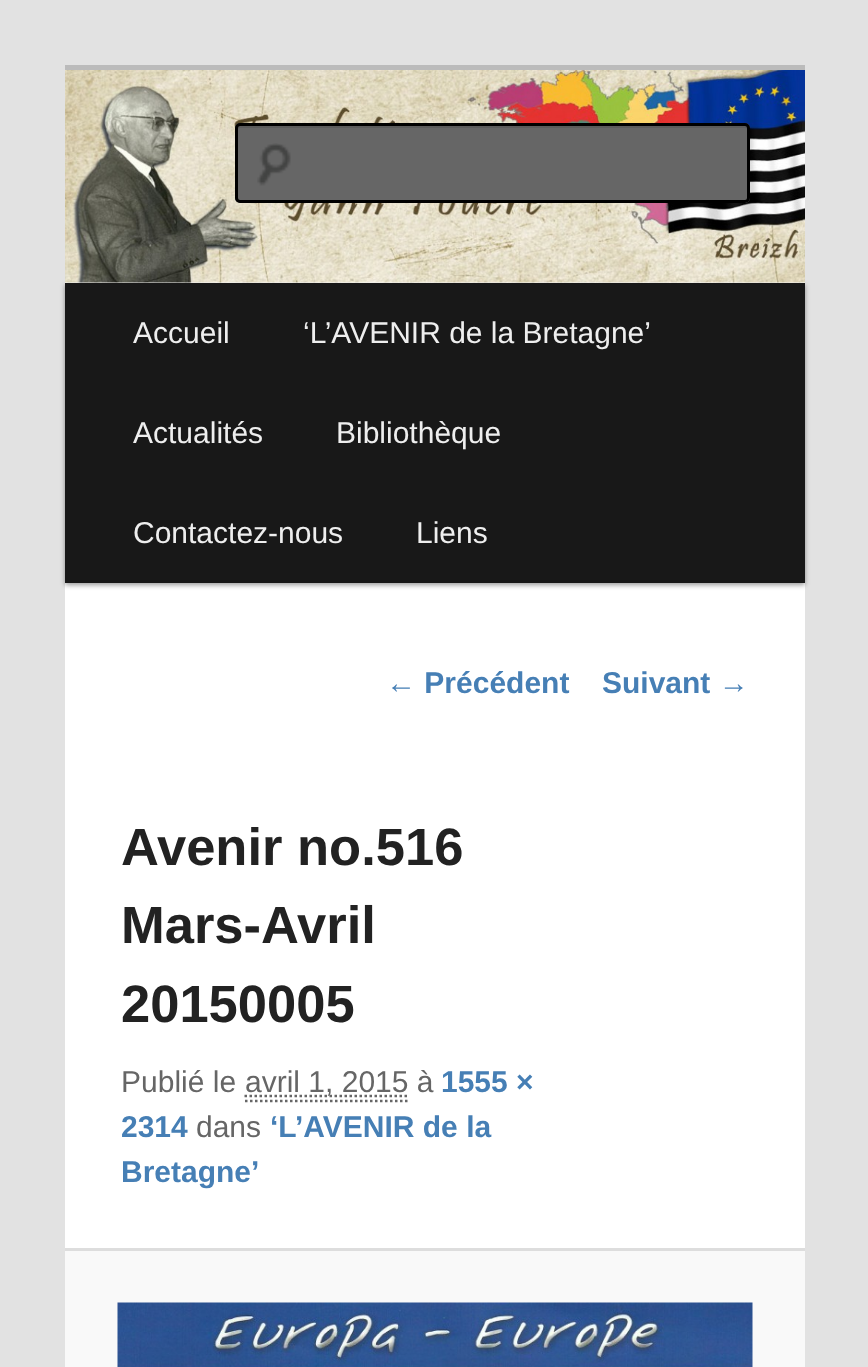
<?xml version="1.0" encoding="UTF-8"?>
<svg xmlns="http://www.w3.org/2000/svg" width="868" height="1367">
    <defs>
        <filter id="blur1" x="-50%" y="-200%" width="200%" height="500%"><feGaussianBlur stdDeviation="2.5"/></filter>
    </defs>
    <rect width="100%" height="100%" fill="#E2E2E2"/>
    <rect x="65" y="282" width="740" height="966" fill="#FFFFFF"/>
    <rect x="65" y="65" width="740" height="5" fill="#BBBBBB"/>
    <rect x="65" y="285" width="740" height="300" fill="#000000" fill-opacity="0.4" filter="url(#blur1)"/>
    <image x="65" y="70" width="740" height="213" href="img_01.png"/>
    <rect x="235" y="123" width="515" height="80" rx="5" fill="#666666"/>
    <image x="257" y="143" width="34" height="43" href="img_02.png"/>
    <path d="M 240 128 H 745 C 746 128 748 129 748 130 C 748 128 748 125 746 125 H 240 L 238 126 V 130 C 238 129 239 128 240 128 Z" fill="#5C5C5C"/>
    <rect x="236.5" y="124.5" width="512" height="77" rx="3.5" fill="none" stroke="#000000" stroke-width="3"/>
    <rect x="65" y="283" width="740" height="300" fill="#181818"/>
    <text x="133" y="343" font-family="Liberation Sans" font-size="30" fill="#EEEEEE">Accueil</text>
    <text x="303" y="343" font-family="Liberation Sans" font-size="30" fill="#EEEEEE">‘L’AVENIR de la Bretagne’</text>
    <text x="133" y="443" font-family="Liberation Sans" font-size="30" fill="#EEEEEE">Actualités</text>
    <text x="336" y="443" font-family="Liberation Sans" font-size="30" fill="#EEEEEE">Bibliothèque</text>
    <text x="133" y="543" font-family="Liberation Sans" font-size="30" fill="#EEEEEE">Contactez-nous</text>
    <text x="416" y="543" font-family="Liberation Sans" font-size="30" fill="#EEEEEE">Liens</text>
    <text x="386" y="693" font-family="Liberation Sans" font-size="30" font-weight="700" fill="#467FB5">← Précédent</text>
    <text x="602" y="693" font-family="Liberation Sans" font-size="30" font-weight="700" fill="#467FB5">Suivant →</text>
    <text font-family="Liberation Sans" font-size="52.5" font-weight="700" fill="#222222">
        <tspan x="121" y="865">Avenir no.516</tspan>
        <tspan x="121" y="943">Mars-Avril</tspan>
        <tspan x="121" y="1022">20150005</tspan>
    </text>
    <text x="121" y="1092" font-family="Liberation Sans" font-size="30" fill="#666666">Publié le</text>
    <path d="M 244.5 1096 H 408" fill="none" stroke="#666666" stroke-width="2.5" stroke-dasharray="2.5 2.5"/>
    <text x="245" y="1092" font-family="Liberation Sans" font-size="30" fill="#666666">avril 1, 2015 à</text>
    <path d="M 245 1101 H 407.5" fill="none" stroke="#666666" stroke-width="2.5" stroke-dasharray="2.5 2.5"/>
    <text x="441" y="1092" font-family="Liberation Sans" font-size="30" font-weight="700" fill="#467FB5">1555 ×</text>
    <text x="121" y="1137" font-family="Liberation Sans" font-size="30" font-weight="700" fill="#467FB5">2314</text>
    <text x="196" y="1137" font-family="Liberation Sans" font-size="30" fill="#666666">dans</text>
    <text x="270" y="1137" font-family="Liberation Sans" font-size="30" font-weight="700" fill="#467FB5">‘L’AVENIR de la</text>
    <text x="121" y="1182" font-family="Liberation Sans" font-size="30" font-weight="700" fill="#467FB5">Bretagne’</text>
    <rect x="65" y="1251" width="740" height="116" fill="#F9F9F9"/>
    <rect x="65" y="1248" width="740" height="3" fill="#DDDDDD"/>
    <image x="117" y="1302" width="636" height="65" href="img_03.png"/>
</svg>
